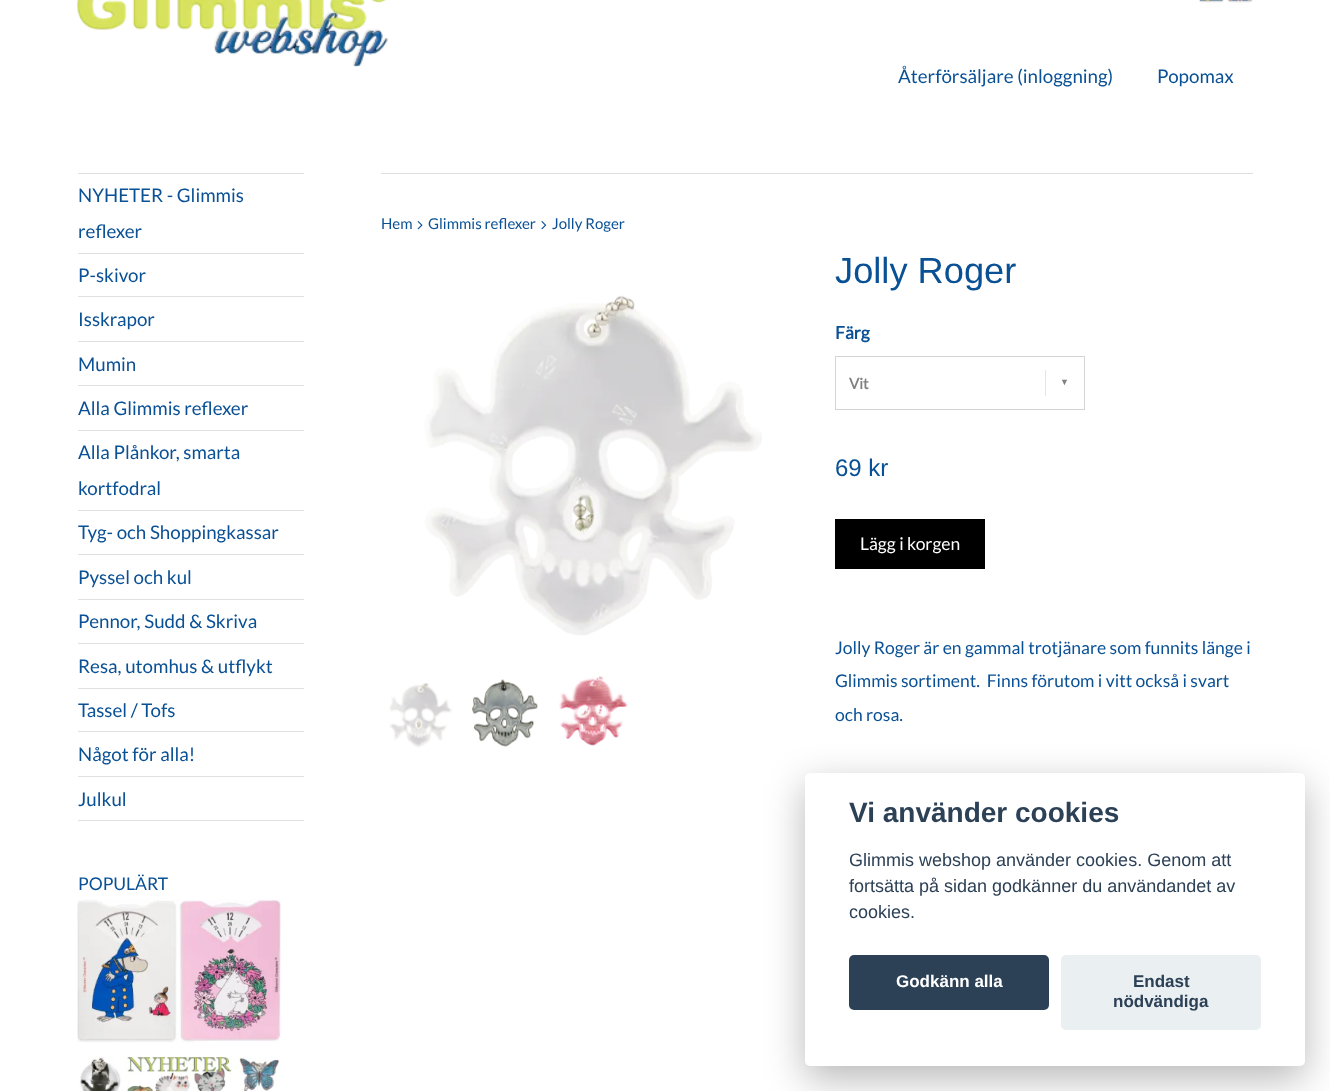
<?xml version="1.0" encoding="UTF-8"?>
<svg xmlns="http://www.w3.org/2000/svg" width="1330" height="1091">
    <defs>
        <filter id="blur1" x="-50%" y="-200%" width="200%" height="500%"><feGaussianBlur stdDeviation="19"/></filter>
    </defs>
    <rect width="100%" height="100%" fill="#FFFFFF"/>
    <image x="77" y="0" width="311" height="67" href="img_01.png"/>
    <image x="1199" y="0" width="25" height="3" href="img_02.png"/>
    <image x="1227" y="0" width="26" height="3" href="img_03.png"/>
    <text x="898" y="83" font-family="Lato" font-size="18.75" fill="#095095">Återförsäljare (inloggning)</text>
    <text x="1157" y="83" font-family="Lato" font-size="18.75" fill="#095095">Popomax</text>
    <rect x="78" y="173" width="226" height="1" fill="#E0E0E0"/>
    <rect x="78" y="253" width="226" height="1" fill="#E0E0E0"/>
    <text font-family="Lato" font-size="18.75" fill="#095095">
        <tspan x="78" y="202">NYHETER - Glimmis</tspan>
        <tspan x="78" y="238">reflexer</tspan>
    </text>
    <rect x="78" y="296" width="226" height="1" fill="#E0E0E0"/>
    <text x="78" y="282" font-family="Lato" font-size="18.75" fill="#095095">P-skivor</text>
    <rect x="78" y="341" width="226" height="1" fill="#E0E0E0"/>
    <text x="78" y="326" font-family="Lato" font-size="18.75" fill="#095095">Isskrapor</text>
    <rect x="78" y="385" width="226" height="1" fill="#E0E0E0"/>
    <text x="78" y="371" font-family="Lato" font-size="18.75" fill="#095095">Mumin</text>
    <rect x="78" y="430" width="226" height="1" fill="#E0E0E0"/>
    <text x="78" y="415" font-family="Lato" font-size="18.75" fill="#095095">Alla Glimmis reflexer</text>
    <rect x="78" y="510" width="226" height="1" fill="#E0E0E0"/>
    <text font-family="Lato" font-size="18.75" fill="#095095">
        <tspan x="78" y="459">Alla Plånkor, smarta</tspan>
        <tspan x="78" y="495">kortfodral</tspan>
    </text>
    <rect x="78" y="554" width="226" height="1" fill="#E0E0E0"/>
    <text x="78" y="539" font-family="Lato" font-size="18.75" fill="#095095">Tyg- och Shoppingkassar</text>
    <rect x="78" y="599" width="226" height="1" fill="#E0E0E0"/>
    <text x="78" y="584" font-family="Lato" font-size="18.75" fill="#095095">Pyssel och kul</text>
    <rect x="78" y="643" width="226" height="1" fill="#E0E0E0"/>
    <text x="78" y="628" font-family="Lato" font-size="18.75" fill="#095095">Pennor, Sudd &amp; Skriva</text>
    <rect x="78" y="688" width="226" height="1" fill="#E0E0E0"/>
    <text x="78" y="673" font-family="Lato" font-size="18.75" fill="#095095">Resa, utomhus &amp; utflykt</text>
    <rect x="78" y="731" width="226" height="1" fill="#E0E0E0"/>
    <text x="78" y="717" font-family="Lato" font-size="18.75" fill="#095095">Tassel / Tofs</text>
    <rect x="78" y="776" width="226" height="1" fill="#E0E0E0"/>
    <text x="78" y="761" font-family="Lato" font-size="18.75" fill="#095095">Något för alla!</text>
    <rect x="78" y="820" width="226" height="1" fill="#E0E0E0"/>
    <text x="78" y="806" font-family="Lato" font-size="18.75" fill="#095095">Julkul</text>
    <text x="78" y="890" font-family="Lato" font-size="17.5" fill="#095095">POPULÄRT</text>
    <image x="77" y="899" width="204" height="144" href="img_04.png"/>
    <image x="79" y="1057" width="200" height="34" href="img_05.png"/>
    <rect x="381" y="173" width="872" height="1" fill="#E0E0E0"/>
    <text x="381" y="229" font-family="Lato" font-size="15" fill="#095095">Hem</text>
    <image x="417" y="221" width="6" height="9" href="img_06.png"/>
    <text x="428" y="229" font-family="Lato" font-size="15" fill="#095095">Glimmis reflexer</text>
    <image x="541" y="221" width="6" height="9" href="img_07.png"/>
    <text x="552" y="229" font-family="Lato" font-size="15" fill="#095095">Jolly Roger</text>
    <image x="424" y="295" width="338" height="341" href="img_08.png"/>
    <image x="752" y="444" width="7" height="6" href="img_09.png"/>
    <image x="389" y="682" width="63" height="66" href="img_10.png"/>
    <image x="472" y="679" width="66" height="68" href="img_11.png"/>
    <image x="559" y="676" width="69" height="70" href="img_12.png"/>
    <text x="835" y="283" font-family="Liberation Sans" font-size="36.25" fill="#095095">Jolly Roger</text>
    <text x="835" y="339" font-family="Lato" font-size="17.5" font-weight="700" fill="#095095">Färg</text>
    <rect x="835.5" y="356.5" width="249" height="53" fill="none" stroke="#D4D4D4"/>
    <text x="849" y="389" font-family="Lato" font-size="15" font-weight="700" fill="#808080">Vit</text>
    <rect x="1045" y="370" width="1" height="26" fill="#E5E5E5"/>
    <text x="1060" y="385" font-family="Liberation Sans" font-size="9" font-weight="700" fill="#808080">▼</text>
    <text x="835" y="476" font-family="Liberation Sans" font-size="24" fill="#095095">69 kr</text>
    <rect x="835" y="519" width="150" height="50" fill="#000000"/>
    <text x="860" y="550" font-family="Lato" font-size="17.5" fill="#FFFFFF">Lägg i korgen</text>
    <text font-family="Lato" font-size="17.5" fill="#095095" xml:space="preserve"><tspan x="835" y="654">Jolly Roger är en gammal trotjänare som funnits länge i</tspan><tspan x="835" y="687">Glimmis sortiment.  Finns förutom i vitt också i svart</tspan><tspan x="835" y="721">och rosa.</tspan></text>
    <rect x="805" y="785" width="500" height="294" rx="5" fill="#020203" fill-opacity="0.28" filter="url(#blur1)"/>
    <rect x="805" y="773" width="500" height="293" rx="5" fill="#FFFFFF"/>
    <text x="849" y="822" font-family="Liberation Sans" font-size="28" font-weight="700" fill="#2D4156">Vi använder cookies</text>
    <text font-family="Liberation Sans" font-size="18" fill="#2D4156">
        <tspan x="849" y="866">Glimmis webshop använder cookies. Genom att</tspan>
        <tspan x="849" y="892">fortsätta på sidan godkänner du användandet av</tspan>
        <tspan x="849" y="918">cookies.</tspan>
    </text>
    <rect x="849" y="955" width="200" height="55" rx="5" fill="#2D4156"/>
    <text x="896" y="987" font-family="Liberation Sans" font-size="17" font-weight="700" fill="#FFFFFF">Godkänn alla</text>
    <rect x="1061" y="955" width="200" height="75" rx="5" fill="#EAEFF2"/>
    <text x="1133" y="987" font-family="Liberation Sans" font-size="17" font-weight="700" fill="#2D4156">Endast</text>
    <text x="1113" y="1007" font-family="Liberation Sans" font-size="17" font-weight="700" fill="#2D4156">nödvändiga</text>
</svg>
